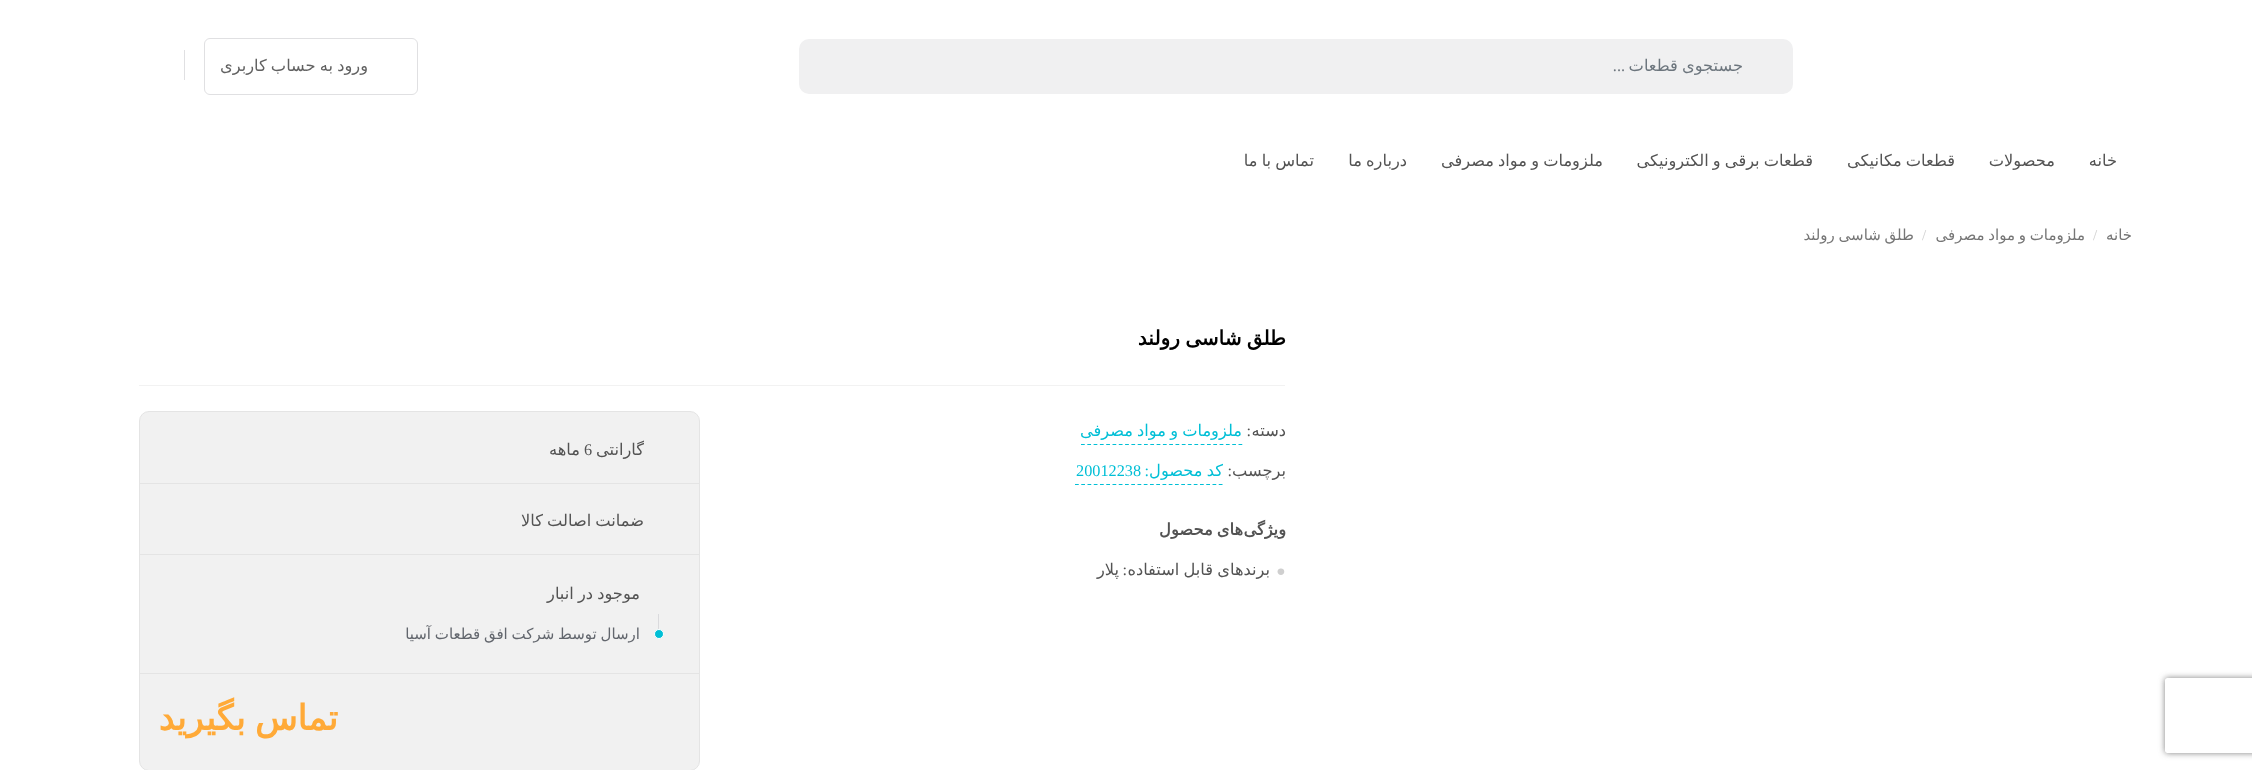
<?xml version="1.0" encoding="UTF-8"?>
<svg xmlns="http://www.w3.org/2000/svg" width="2252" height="770">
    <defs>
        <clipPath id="clip1"><path d="M 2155 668 H 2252 V 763 H 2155 Z M 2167.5 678 H 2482.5 C 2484 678 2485 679 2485 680.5 V 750.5 C 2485 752 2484 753 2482.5 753 H 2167.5 C 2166 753 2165 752 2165 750.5 V 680.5 C 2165 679 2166 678 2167.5 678 Z" clip-rule="evenodd"/></clipPath>
        <filter id="blur1" x="-50%" y="-200%" width="200%" height="500%"><feGaussianBlur stdDeviation="3"/></filter>
    </defs>
    <rect width="100%" height="100%" fill="#FFFFFF"/>
    <rect x="799" y="39" width="994" height="55" rx="10" fill="#F0F0F1"/>
    <text x="1743" y="71" word-spacing="-1" font-family="DejaVu Sans" font-size="16.25" direction="rtl" fill="#6C757D">جستجوی قطعات</text>
    <text x="1625" y="71" font-family="Liberation Serif" font-size="16.25" direction="rtl" fill="#6C757D">...</text>
    <rect x="204.5" y="38.5" width="213" height="56" rx="5.5" fill="none" stroke="#E0E0E2"/>
    <text x="368" y="71" word-spacing="-1" font-family="DejaVu Sans" font-size="16.25" direction="rtl" fill="#616161">ورود به حساب کاربری</text>
    <rect x="184" y="50" width="1" height="30" fill="#E0E0E2"/>
    <text x="2117" y="166" font-family="DejaVu Sans" font-size="16.25" direction="rtl" fill="#535353">خانه</text>
    <text x="2055" y="166" font-family="DejaVu Sans" font-size="16.25" direction="rtl" fill="#535353">محصولات</text>
    <text x="1955" y="166" word-spacing="-1" font-family="DejaVu Sans" font-size="16.25" direction="rtl" fill="#535353">قطعات مکانیکی</text>
    <text x="1813" y="166" word-spacing="-1" font-family="DejaVu Sans" font-size="16.25" direction="rtl" fill="#535353">قطعات برقی و الکترونیکی</text>
    <text x="1603" y="166" word-spacing="-1" font-family="DejaVu Sans" font-size="16.25" direction="rtl" fill="#535353">ملزومات و مواد مصرفی</text>
    <text x="1407" y="166" word-spacing="-1" font-family="DejaVu Sans" font-size="16.25" direction="rtl" fill="#535353">درباره ما</text>
    <text x="1314" y="166" word-spacing="-1" font-family="DejaVu Sans" font-size="16.25" direction="rtl" fill="#535353">تماس با ما</text>
    <g clip-path="url(#clip1)">
        <rect x="2165" y="678" width="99" height="75" rx="2.5" fill="#808080" filter="url(#blur1)"/>
    </g>
    <text x="2132" y="240" font-family="DejaVu Sans" font-size="15" direction="rtl" fill="#767676">خانه</text>
    <text x="2093" y="240" font-family="Liberation Serif" font-size="15" fill="#CFCFCF">/</text>
    <text x="2085" y="240" word-spacing="-1" font-family="DejaVu Sans" font-size="15" direction="rtl" fill="#767676">ملزومات و مواد مصرفی</text>
    <text x="1922" y="240" font-family="Liberation Serif" font-size="15" fill="#CFCFCF">/</text>
    <text x="1914" y="240" word-spacing="-1" font-family="DejaVu Sans" font-size="15" direction="rtl" fill="#767676">طلق شاسی رولند</text>
    <rect x="139" y="385" width="1146" height="1" fill="#F2F2F2"/>
    <text x="1286" y="345" word-spacing="-1" font-family="DejaVu Sans" font-size="20" font-weight="700" direction="rtl" fill="#000000">طلق شاسی رولند</text>
    <text x="1286" y="436" font-family="DejaVu Sans" font-size="16.25" direction="rtl" fill="#535353">دسته</text>
    <text x="1251" y="436" font-family="Liberation Serif" font-size="16.25" direction="rtl" fill="#535353">:</text>
    <path d="M 1081 444.5 H 1242.5" fill="none" stroke="#00BFD6" stroke-width="1.2" stroke-dasharray="3.75 2.55"/>
    <text x="1242" y="436" word-spacing="-1" font-family="DejaVu Sans" font-size="16.25" direction="rtl" fill="#00BFD6">ملزومات و مواد مصرفی</text>
    <text x="1286" y="476" font-family="DejaVu Sans" font-size="16.25" direction="rtl" fill="#535353">برچسب</text>
    <text x="1232" y="476" font-family="Liberation Serif" font-size="16.25" direction="rtl" fill="#535353">:</text>
    <path d="M 1075 484.5 H 1222.5" fill="none" stroke="#00BFD6" stroke-width="1.2" stroke-dasharray="3.75 2.5"/>
    <text x="1223" y="476" word-spacing="-1" font-family="DejaVu Sans" font-size="16.25" direction="rtl" fill="#00BFD6">کد محصول</text>
    <text x="1149" y="476" font-family="Liberation Serif" font-size="16.25" direction="rtl" fill="#00BFD6">:</text>
    <text x="1076" y="476" font-family="Liberation Serif" font-size="16.25" fill="#00BFD6">20012238</text>
    <text x="1243" y="535" word-spacing="-1" font-family="DejaVu Sans" font-size="16.25" font-weight="700" direction="rtl" fill="#535353">های محصول</text>
    <text x="1286" y="535" font-family="DejaVu Sans" font-size="16.25" font-weight="700" direction="rtl" fill="#535353">ویژگی</text>
    <text x="1276" y="581" font-family="Liberation Serif" font-size="28" fill="#CFCFCF">•</text>
    <text x="1270" y="575" word-spacing="-1" font-family="DejaVu Sans" font-size="16.25" direction="rtl" fill="#535353">برندهای قابل استفاده</text>
    <text x="1127" y="575" font-family="Liberation Serif" font-size="16.25" direction="rtl" fill="#535353">:</text>
    <text x="1119" y="575" font-family="DejaVu Sans" font-size="16.25" direction="rtl" fill="#535353">پلار</text>
    <rect x="139.5" y="411.5" width="560" height="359" rx="9.5" fill="#F1F1F1" stroke="#E4E4E4"/>
    <rect x="140" y="483" width="559" height="1" fill="#E4E4E4"/>
    <text x="644" y="455" font-family="DejaVu Sans" font-size="16.25" direction="rtl" fill="#535353">گارانتی</text>
    <text x="584" y="455" font-family="Liberation Serif" font-size="16.25" fill="#535353">6</text>
    <text x="580" y="455" font-family="DejaVu Sans" font-size="16.25" direction="rtl" fill="#535353">ماهه</text>
    <rect x="140" y="554" width="559" height="1" fill="#E4E4E4"/>
    <text x="644" y="526" word-spacing="-1" font-family="DejaVu Sans" font-size="16.25" direction="rtl" fill="#535353">ضمانت اصالت کالا</text>
    <rect x="140" y="673" width="559" height="1" fill="#E4E4E4"/>
    <text x="640" y="599" word-spacing="-1" font-family="DejaVu Sans" font-size="16.25" direction="rtl" fill="#535353">موجود در انبار</text>
    <rect x="658" y="614" width="1" height="20" fill="#DADADD"/>
    <text x="640" y="639" word-spacing="-1" font-family="DejaVu Sans" font-size="15" direction="rtl" fill="#62666D">ارسال توسط شرکت افق قطعات آسیا</text>
    <circle cx="659" cy="634" r="4.5" fill="#00BFD6" stroke="#FFFFFF"/>
    <text x="338" y="730" word-spacing="-2" font-family="DejaVu Sans" font-size="35" font-weight="700" direction="rtl" fill="#FFAA38">تماس بگیرید</text>
</svg>
